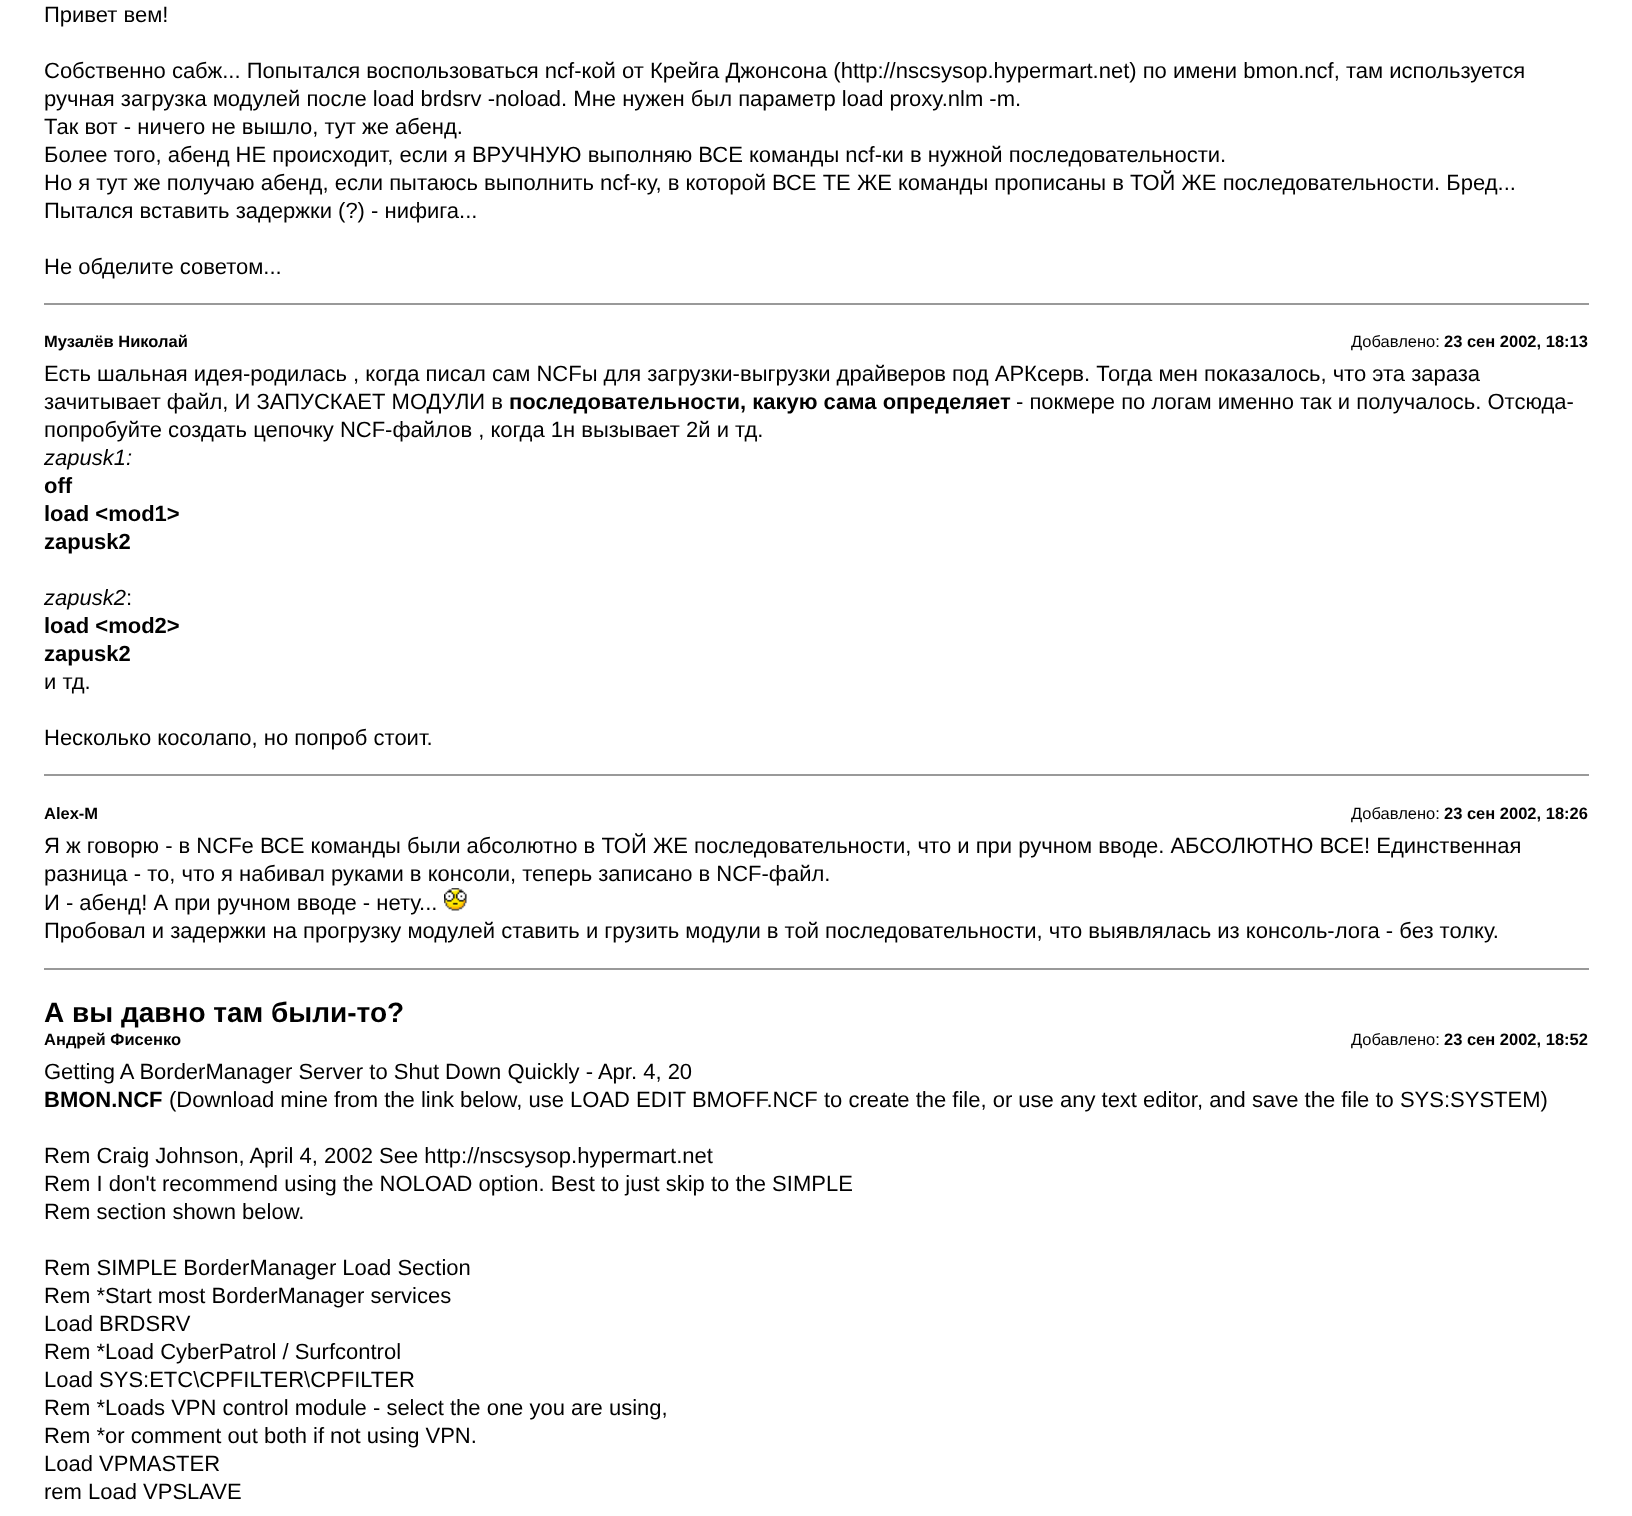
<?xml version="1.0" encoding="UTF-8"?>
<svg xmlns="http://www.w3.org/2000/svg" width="1632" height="1516">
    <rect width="100%" height="100%" fill="#FFFFFF"/>
    <text x="44" y="22" font-family="Liberation Sans" font-size="22" fill="#000000">Привет вем!</text>
    <text font-family="Liberation Sans" font-size="22" fill="#000000">
        <tspan x="44" y="78">Собственно сабж... Попытался воспользоваться ncf-кой от Крейга Джонсона (http://nscsysop.hypermart.net) по имени bmon.ncf, там используется</tspan>
        <tspan x="44" y="106">ручная загрузка модулей после load brdsrv -noload. Мне нужен был параметр load proxy.nlm -m.</tspan>
        <tspan x="44" y="134">Так вот - ничего не вышло, тут же абенд.</tspan>
        <tspan x="44" y="162">Более того, абенд НЕ происходит, если я ВРУЧНУЮ выполняю ВСЕ команды ncf-ки в нужной последовательности.</tspan>
        <tspan x="44" y="190">Но я тут же получаю абенд, если пытаюсь выполнить ncf-ку, в которой ВСЕ ТЕ ЖЕ команды прописаны в ТОЙ ЖЕ последовательности. Бред...</tspan>
        <tspan x="44" y="218">Пытался вставить задержки (?) - нифига...</tspan>
    </text>
    <text x="44" y="274" font-family="Liberation Sans" font-size="22" fill="#000000">Не обделите советом...</text>
    <rect x="44" y="303" width="1545" height="2" fill="#999999"/>
    <text x="44" y="347" font-family="Liberation Sans" font-size="16.5" font-weight="700" fill="#000000">Музалёв Николай</text>
    <text x="1351" y="347" font-family="Liberation Sans" font-size="16.5" fill="#000000">Добавлено:</text>
    <text x="1444" y="347" font-family="Liberation Sans" font-size="16.5" font-weight="700" fill="#000000">23 сен 2002, 18:13</text>
    <text font-family="Liberation Sans" font-size="22" fill="#000000">
        <tspan x="44" y="381">Есть шальная идея-родилась , когда писал сам NCFы для загрузки-выгрузки драйверов под АРКсерв. Тогда мен показалось, что эта зараза</tspan>
        <tspan x="44" y="409">зачитывает файл, И ЗАПУСКАЕТ МОДУЛИ в</tspan>
    </text>
    <text x="509" y="409" font-family="Liberation Sans" font-size="22" font-weight="700" fill="#000000">последовательности, какую сама определяет</text>
    <text x="1016" y="409" font-family="Liberation Sans" font-size="22" fill="#000000">- покмере по логам именно так и получалось. Отсюда-</text>
    <text x="44" y="437" font-family="Liberation Sans" font-size="22" fill="#000000">попробуйте создать цепочку NCF-файлов , когда 1н вызывает 2й и тд.</text>
    <text x="44" y="465" font-family="Liberation Sans" font-size="22" font-style="italic" fill="#000000">zapusk1:</text>
    <text font-family="Liberation Sans" font-size="22" font-weight="700" fill="#000000">
        <tspan x="44" y="493">off</tspan>
        <tspan x="44" y="521">load &lt;mod1&gt;</tspan>
        <tspan x="44" y="549">zapusk2</tspan>
    </text>
    <text x="44" y="605" font-family="Liberation Sans" font-size="22" font-style="italic" fill="#000000">zapusk2</text>
    <text x="126" y="605" font-family="Liberation Sans" font-size="22" fill="#000000">:</text>
    <text font-family="Liberation Sans" font-size="22" font-weight="700" fill="#000000">
        <tspan x="44" y="633">load &lt;mod2&gt;</tspan>
        <tspan x="44" y="661">zapusk2</tspan>
    </text>
    <text x="44" y="689" font-family="Liberation Sans" font-size="22" fill="#000000">и тд.</text>
    <text x="44" y="745" font-family="Liberation Sans" font-size="22" fill="#000000">Несколько косолапо, но попроб стоит.</text>
    <rect x="44" y="774" width="1545" height="2" fill="#999999"/>
    <text x="44" y="819" font-family="Liberation Sans" font-size="16.5" font-weight="700" fill="#000000">Alex-M</text>
    <text x="1351" y="819" font-family="Liberation Sans" font-size="16.5" fill="#000000">Добавлено:</text>
    <text x="1444" y="819" font-family="Liberation Sans" font-size="16.5" font-weight="700" fill="#000000">23 сен 2002, 18:26</text>
    <text font-family="Liberation Sans" font-size="22" fill="#000000">
        <tspan x="44" y="853">Я ж говорю - в NCFе ВСЕ команды были абсолютно в ТОЙ ЖЕ последовательности, что и при ручном вводе. АБСОЛЮТНО ВСЕ! Единственная</tspan>
        <tspan x="44" y="881">разница - то, что я набивал руками в консоли, теперь записано в NCF-файл.</tspan>
        <tspan x="44" y="910">И - абенд! А при ручном вводе - нету...</tspan>
    </text>
    <image x="444" y="888" width="23" height="23" href="img_01.png"/>
    <text x="44" y="938" font-family="Liberation Sans" font-size="22" fill="#000000">Пробовал и задержки на прогрузку модулей ставить и грузить модули в той последовательности, что выявлялась из консоль-лога - без толку.</text>
    <rect x="44" y="968" width="1545" height="2" fill="#999999"/>
    <text x="44" y="1022" font-family="Liberation Sans" font-size="28" font-weight="700" fill="#000000">А вы давно там были-то?</text>
    <text x="44" y="1045" font-family="Liberation Sans" font-size="16.5" font-weight="700" fill="#000000">Андрей Фисенко</text>
    <text x="1351" y="1045" font-family="Liberation Sans" font-size="16.5" fill="#000000">Добавлено:</text>
    <text x="1444" y="1045" font-family="Liberation Sans" font-size="16.5" font-weight="700" fill="#000000">23 сен 2002, 18:52</text>
    <text x="44" y="1079" font-family="Liberation Sans" font-size="22" fill="#000000">Getting A BorderManager Server to Shut Down Quickly - Apr. 4, 20</text>
    <text x="44" y="1107" font-family="Liberation Sans" font-size="22" font-weight="700" fill="#000000">BMON.NCF</text>
    <text x="169" y="1107" font-family="Liberation Sans" font-size="22" fill="#000000">(Download mine from the link below, use LOAD EDIT BMOFF.NCF to create the file, or use any text editor, and save the file to SYS:SYSTEM)</text>
    <text font-family="Liberation Sans" font-size="22" fill="#000000">
        <tspan x="44" y="1163">Rem Craig Johnson, April 4, 2002 See http://nscsysop.hypermart.net</tspan>
        <tspan x="44" y="1191">Rem I don't recommend using the NOLOAD option. Best to just skip to the SIMPLE</tspan>
        <tspan x="44" y="1219">Rem section shown below.</tspan>
    </text>
    <text font-family="Liberation Sans" font-size="22" fill="#000000">
        <tspan x="44" y="1275">Rem SIMPLE BorderManager Load Section</tspan>
        <tspan x="44" y="1303">Rem *Start most BorderManager services</tspan>
        <tspan x="44" y="1331">Load BRDSRV</tspan>
        <tspan x="44" y="1359">Rem *Load CyberPatrol / Surfcontrol</tspan>
        <tspan x="44" y="1387">Load SYS:ETC\CPFILTER\CPFILTER</tspan>
        <tspan x="44" y="1415">Rem *Loads VPN control module - select the one you are using,</tspan>
        <tspan x="44" y="1443">Rem *or comment out both if not using VPN.</tspan>
        <tspan x="44" y="1471">Load VPMASTER</tspan>
        <tspan x="44" y="1499">rem Load VPSLAVE</tspan>
    </text>
</svg>
